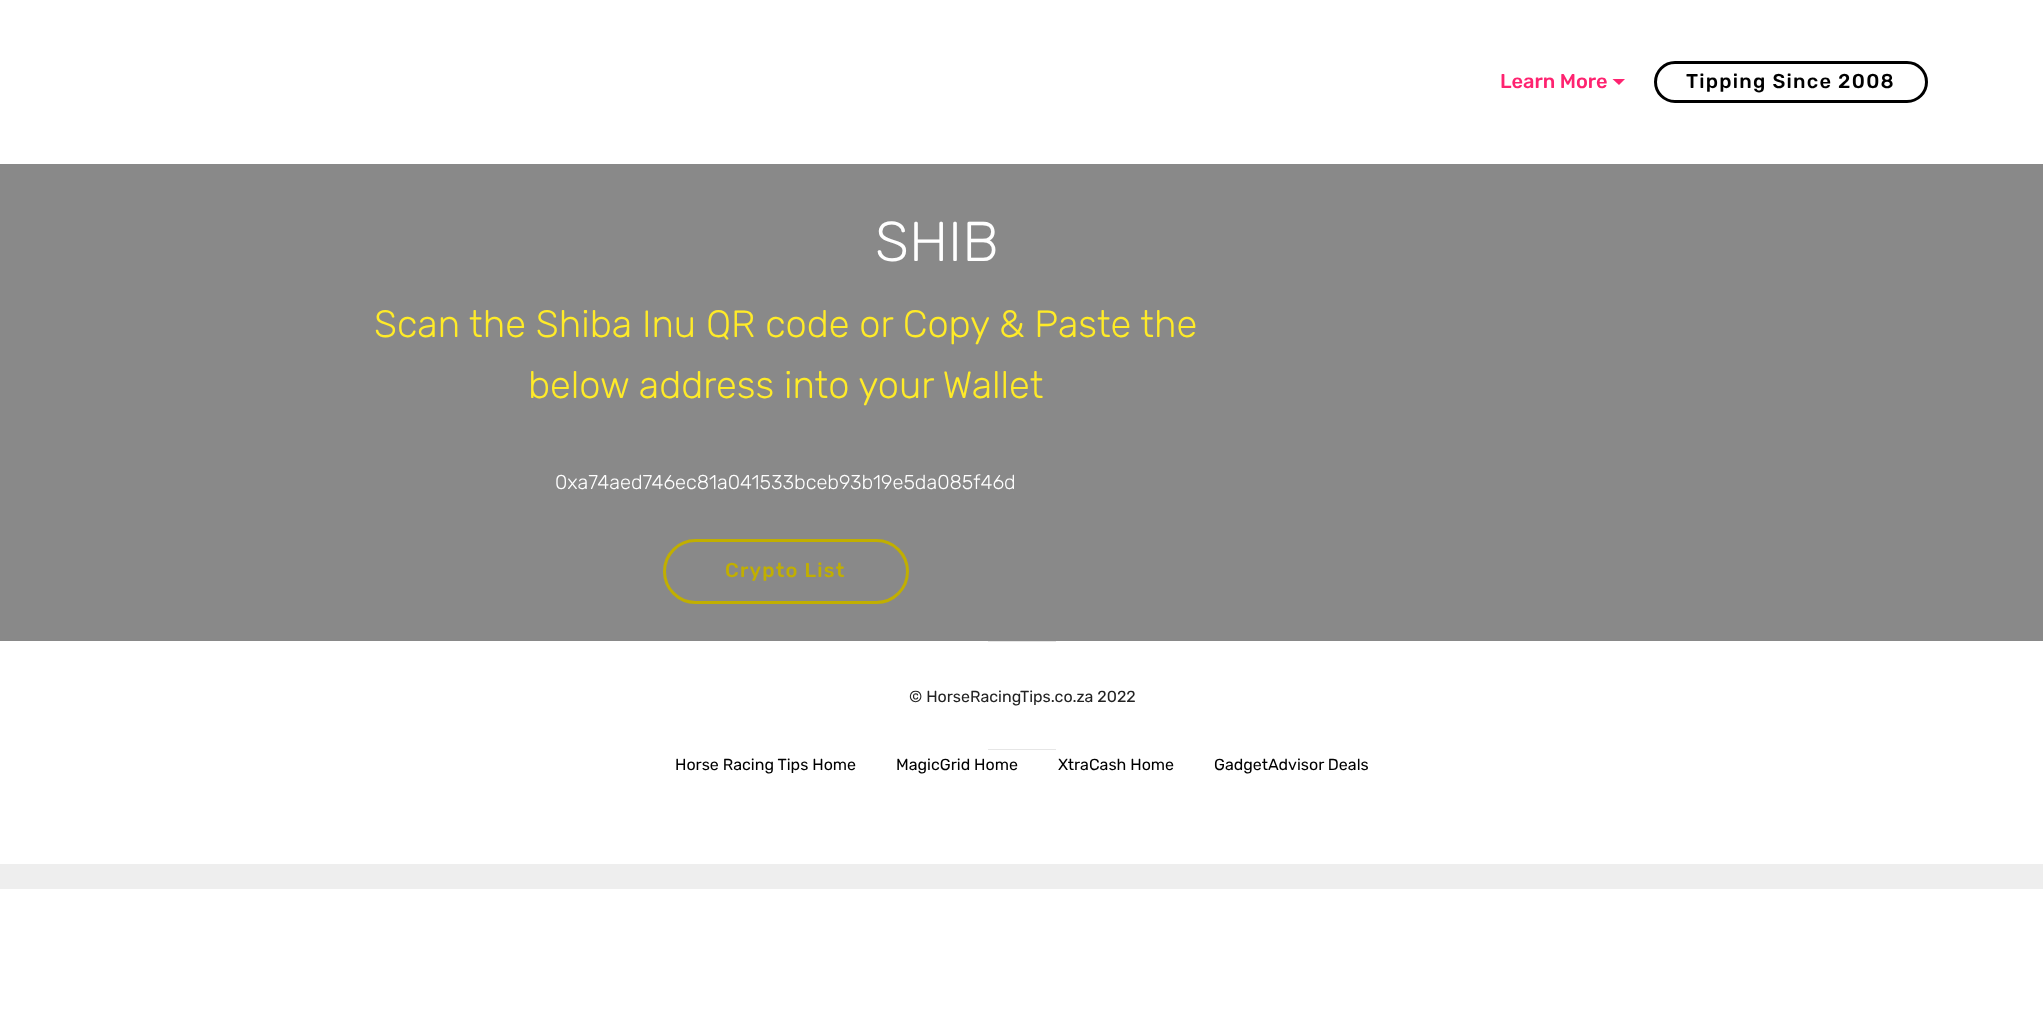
<?xml version="1.0" encoding="UTF-8"?>
<svg xmlns="http://www.w3.org/2000/svg" width="2043" height="1021">
    <rect width="100%" height="100%" fill="#FFFFFF"/>
    <text x="1500" y="88" font-family="Rubik" font-size="20" font-weight="500" fill="#FE2370">Learn More</text>
    <path d="M 1612.5 79 H 1625 L 1619 85 Z" fill="#FE2370"/>
    <rect x="1655.5" y="62.5" width="271" height="39" rx="19.5" fill="none" stroke="#000000" stroke-width="3"/>
    <text x="1686" y="88" font-family="Rubik" font-size="20" font-weight="500" letter-spacing="1.25" fill="#000000">Tipping Since 2008</text>
    <rect x="0" y="164" width="2043" height="477" fill="#898989"/>
    <text x="875" y="261" font-family="Rubik" font-size="56" font-weight="300" fill="#FFFFFF">SHIB</text>
    <text x="374" y="337" font-family="Rubik" font-size="38" font-weight="300" fill="#FFEB28">Scan the Shiba Inu QR code or Copy &amp; Paste the</text>
    <text x="528" y="398" font-family="Rubik" font-size="38" font-weight="300" fill="#FFEB28">below address into your Wallet</text>
    <text x="555" y="489" font-family="Rubik" font-size="20" font-weight="300" fill="#FFFFFF">0xa74aed746ec81a041533bceb93b19e5da085f46d</text>
    <rect x="664.5" y="540.5" width="243" height="62" rx="31" fill="none" stroke="#C1AF00" stroke-width="3"/>
    <text x="725" y="577" font-family="Rubik" font-size="20" font-weight="500" letter-spacing="1.25" fill="#C1AF00">Crypto List</text>
    <rect x="988" y="641" width="68" height="1" fill="#E6E6E6"/>
    <text x="909" y="702" font-family="Rubik" font-size="16" fill="#232323">© HorseRacingTips.co.za 2022</text>
    <rect x="988" y="749" width="68" height="1" fill="#E6E6E6"/>
    <text x="675" y="770" font-family="Rubik" font-size="16" fill="#000000">Horse Racing Tips Home</text>
    <text x="896" y="770" font-family="Rubik" font-size="16" fill="#000000">MagicGrid Home</text>
    <text x="1058" y="770" font-family="Rubik" font-size="16" fill="#000000">XtraCash Home</text>
    <text x="1214" y="770" font-family="Rubik" font-size="16" fill="#000000">GadgetAdvisor Deals</text>
    <rect x="0" y="864" width="2043" height="25" fill="#EEEEEE"/>
</svg>
